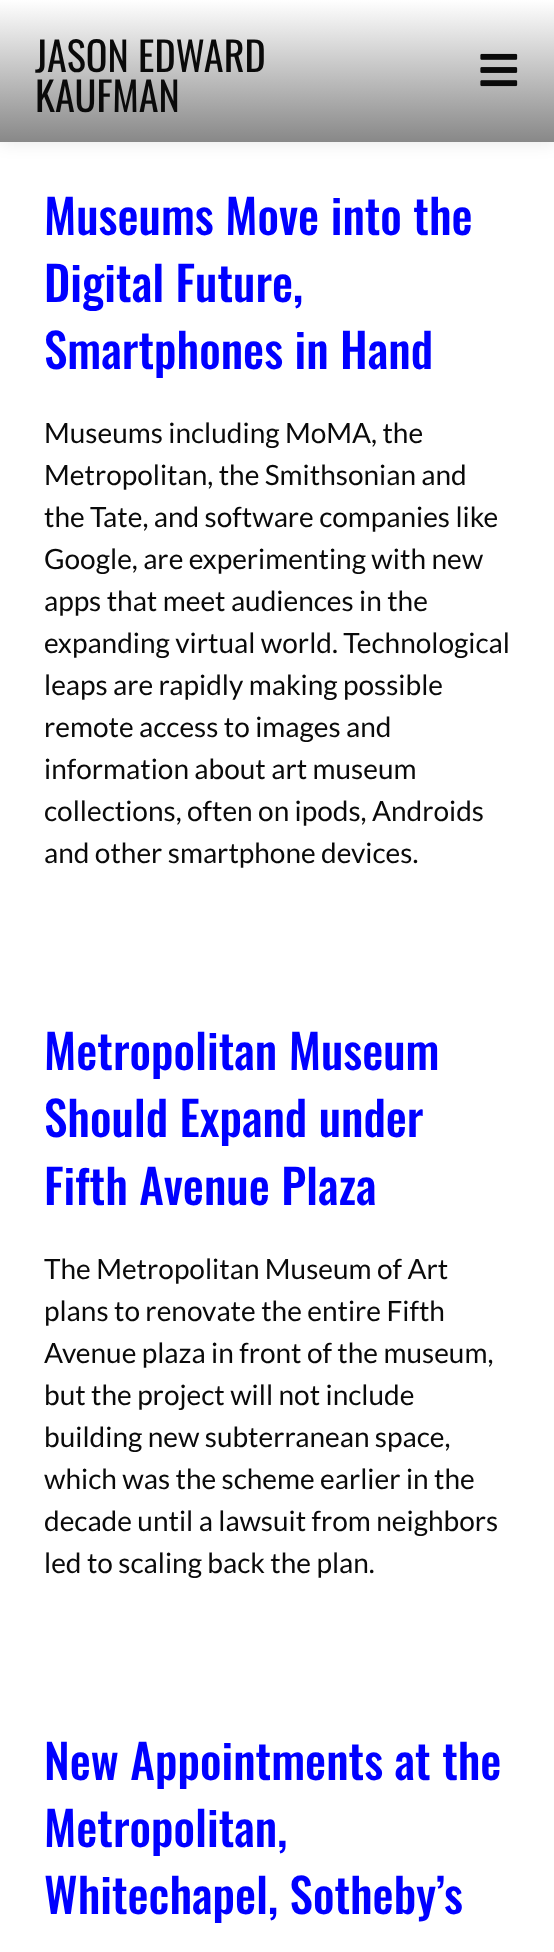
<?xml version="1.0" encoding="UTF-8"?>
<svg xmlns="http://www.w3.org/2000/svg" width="554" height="1952">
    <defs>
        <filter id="blur1" x="-50%" y="-200%" width="200%" height="500%"><feGaussianBlur stdDeviation="9"/></filter>
        <linearGradient id="g1" gradientUnits="userSpaceOnUse" x1="277" y1="142" x2="277" y2="0"><stop offset="0" stop-color="#888888"/><stop offset="1" stop-color="#FFFFFF"/></linearGradient>
    </defs>
    <rect width="100%" height="100%" fill="#FFFFFF"/>
    <rect x="0" y="0" width="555" height="142" fill="#000000" fill-opacity="0.1" filter="url(#blur1)"/>
    <rect x="0" y="0" width="554" height="142" fill="url(#g1)"/>
    <text font-family="Oswald" font-size="40.25" fill="#0A0A0A">
        <tspan x="35" y="72">JASON EDWARD</tspan>
        <tspan x="35" y="112">KAUFMAN</tspan>
    </text>
    <image x="480" y="53" width="38" height="34" href="img_01.png"/>
    <text font-family="Oswald" font-size="47.25" font-weight="500" fill="#0000FF">
        <tspan x="44" y="235">Museums Move into the</tspan>
        <tspan x="44" y="302">Digital Future,</tspan>
        <tspan x="44" y="369">Smartphones in Hand</tspan>
    </text>
    <text font-family="Lato" font-size="28" fill="#0A0A0A">
        <tspan x="44" y="443">Museums including MoMA, the</tspan>
        <tspan x="44" y="485">Metropolitan, the Smithsonian and</tspan>
        <tspan x="44" y="527">the Tate, and software companies like</tspan>
        <tspan x="44" y="569">Google, are experimenting with new</tspan>
        <tspan x="44" y="611">apps that meet audiences in the</tspan>
        <tspan x="44" y="653">expanding virtual world. Technological</tspan>
        <tspan x="44" y="695">leaps are rapidly making possible</tspan>
        <tspan x="44" y="737">remote access to images and</tspan>
        <tspan x="44" y="779">information about art museum</tspan>
        <tspan x="44" y="821">collections, often on ipods, Androids</tspan>
        <tspan x="44" y="863">and other smartphone devices.</tspan>
    </text>
    <text font-family="Oswald" font-size="47.25" font-weight="500" fill="#0000FF">
        <tspan x="44" y="1070">Metropolitan Museum</tspan>
        <tspan x="44" y="1137">Should Expand under</tspan>
        <tspan x="44" y="1205">Fifth Avenue Plaza</tspan>
    </text>
    <text font-family="Lato" font-size="28" fill="#0A0A0A">
        <tspan x="44" y="1279">The Metropolitan Museum of Art</tspan>
        <tspan x="44" y="1321">plans to renovate the entire Fifth</tspan>
        <tspan x="44" y="1363">Avenue plaza in front of the museum,</tspan>
        <tspan x="44" y="1405">but the project will not include</tspan>
        <tspan x="44" y="1447">building new subterranean space,</tspan>
        <tspan x="44" y="1489">which was the scheme earlier in the</tspan>
        <tspan x="44" y="1531">decade until a lawsuit from neighbors</tspan>
        <tspan x="44" y="1573">led to scaling back the plan.</tspan>
    </text>
    <text font-family="Oswald" font-size="47.25" font-weight="500" fill="#0000FF">
        <tspan x="44" y="1780">New Appointments at the</tspan>
        <tspan x="44" y="1847">Metropolitan,</tspan>
        <tspan x="44" y="1914">Whitechapel, Sotheby’s</tspan>
    </text>
</svg>
